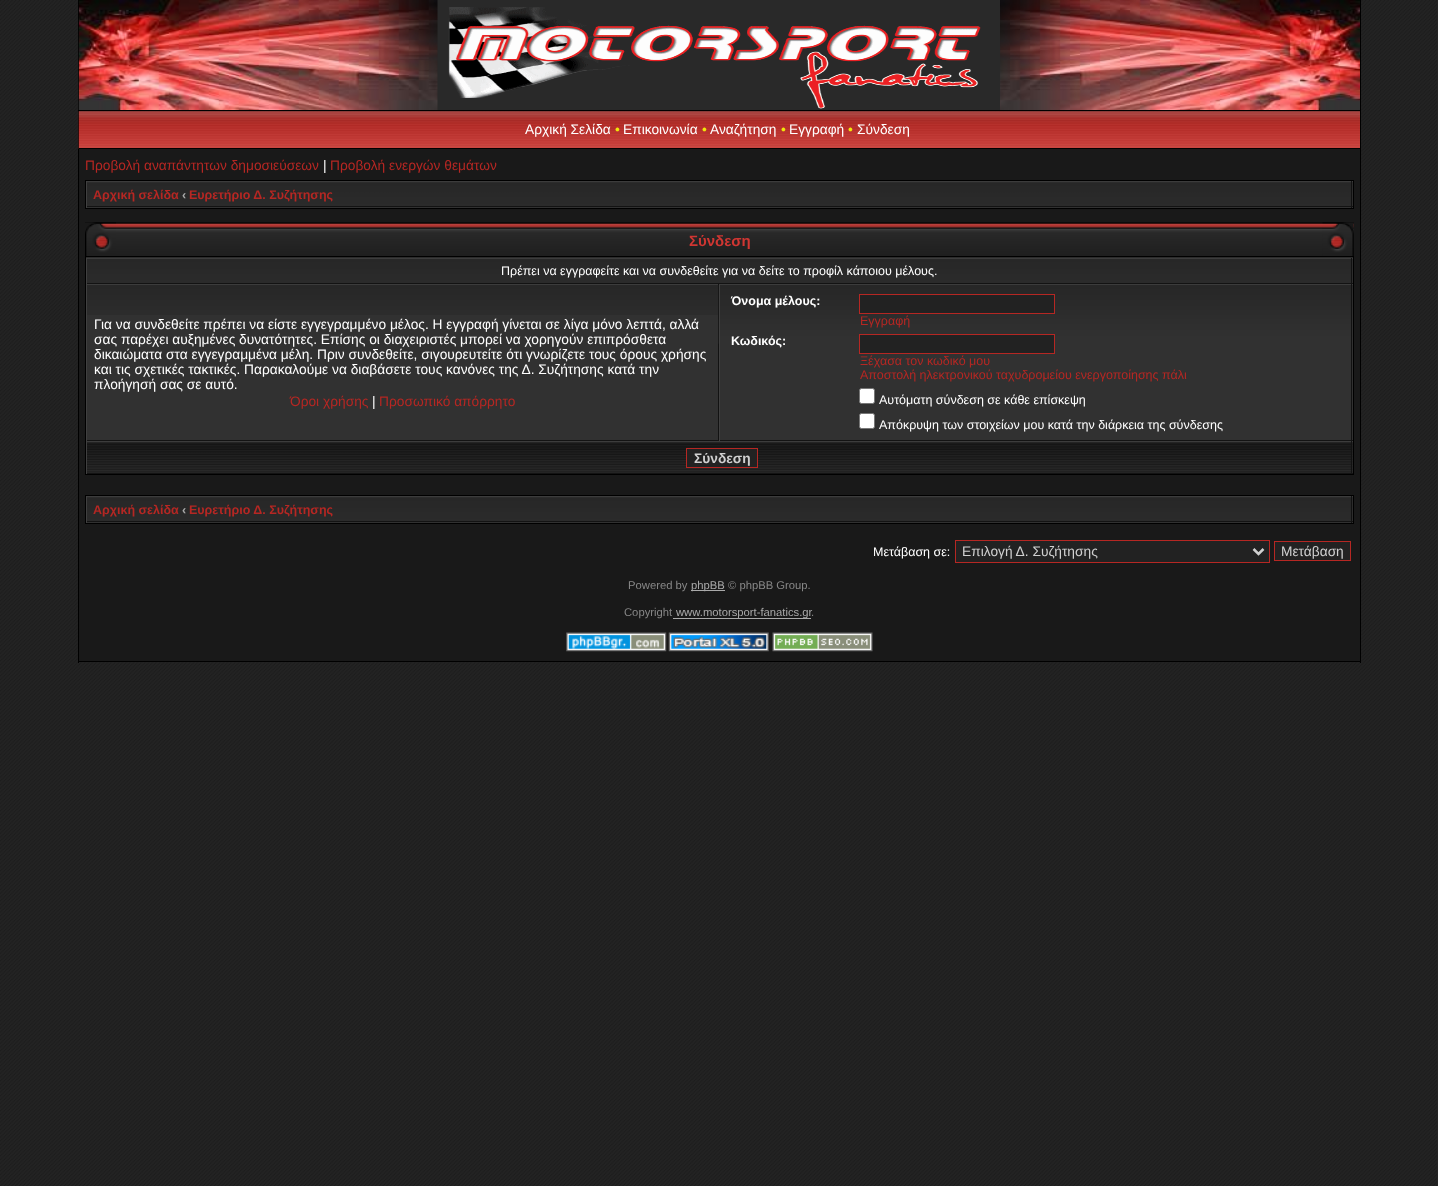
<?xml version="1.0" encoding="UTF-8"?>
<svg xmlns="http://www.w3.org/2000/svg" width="1438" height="1186">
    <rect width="100%" height="100%" fill="#242424"/>
    <image x="0" y="0" width="1437" height="1186" href="img_01.png"/>
    <rect x="1360" y="0" width="1" height="663" fill="#000000"/>
    <rect x="78" y="661" width="1283" height="1" fill="#000000"/>
    <rect x="78" y="0" width="1" height="663" fill="#000000"/>
    <image x="78" y="0" width="1" height="110" href="img_02.png"/>
    <image x="78" y="0" width="360" height="110" href="img_03.png"/>
    <image x="1000" y="0" width="360" height="110" href="img_04.png"/>
    <image x="437" y="0" width="563" height="110" href="img_05.png"/>
    <image x="78" y="111" width="1282" height="38" href="img_06.png"/>
    <rect x="79" y="110" width="1281" height="1" fill="#000000"/>
    <rect x="79" y="148" width="1281" height="1" fill="#000000"/>
    <text x="525" y="134" font-family="Liberation Sans" font-size="13.75" fill="#FFFFFF">Αρχική Σελίδα</text>
    <text x="615" y="134" font-family="Liberation Sans" font-size="13.75" fill="#F0E80A">•</text>
    <text x="623" y="134" font-family="Liberation Sans" font-size="13.75" fill="#FFFFFF">Επικοινωνία</text>
    <text x="702" y="134" font-family="Liberation Sans" font-size="13.75" fill="#F0E80A">•</text>
    <text x="710" y="134" font-family="Liberation Sans" font-size="13.75" fill="#FFFFFF">Αναζήτηση</text>
    <text x="781" y="134" font-family="Liberation Sans" font-size="13.75" fill="#F0E80A">•</text>
    <text x="789" y="134" font-family="Liberation Sans" font-size="13.75" fill="#FFFFFF">Εγγραφή</text>
    <text x="848" y="134" font-family="Liberation Sans" font-size="13.75" fill="#F0E80A">•</text>
    <text x="857" y="134" font-family="Liberation Sans" font-size="13.75" fill="#FFFFFF">Σύνδεση</text>
    <rect x="79" y="149" width="1281" height="512" fill="#191919"/>
    <text x="85" y="170" font-family="Liberation Sans" font-size="13.75" fill="#B62723">Προβολή αναπάντητων δημοσιεύσεων</text>
    <text x="323" y="170" font-family="Liberation Sans" font-size="13.75" fill="#FFFFFF">|</text>
    <text x="330" y="170" font-family="Liberation Sans" font-size="13.75" fill="#B62723">Προβολή ενεργών θεμάτων</text>
    <rect x="85.5" y="180.5" width="1268" height="28" fill="none" stroke="#000000"/>
    <rect x="87" y="182" width="1266" height="26" fill="#313131"/>
    <image x="87" y="182" width="1266" height="24" href="img_07.png"/>
    <rect x="86" y="181" width="1267" height="1" fill="#3C3C3C"/>
    <rect x="1351" y="181" width="1" height="27" fill="#121212"/>
    <rect x="86" y="206" width="1267" height="1" fill="#131313"/>
    <rect x="86" y="181" width="1" height="27" fill="#404040"/>
    <text x="93" y="199" font-family="Liberation Sans" font-size="12.5" font-weight="700" fill="#B62723">Αρχική σελίδα</text>
    <text x="182" y="199" font-family="Liberation Sans" font-size="12.5" font-weight="700" fill="#AAAAAA">‹</text>
    <text x="189" y="199" font-family="Liberation Sans" font-size="12.5" font-weight="700" fill="#B62723">Ευρετήριο Δ. Συζήτησης</text>
    <image x="85" y="222" width="1269" height="34" href="img_08.png"/>
    <image x="85" y="222" width="31" height="34" href="img_09.png"/>
    <image x="1322" y="222" width="32" height="34" href="img_10.png"/>
    <text x="689" y="246" font-family="Liberation Sans" font-size="15" font-weight="700" fill="#D03632">Σύνδεση</text>
    <rect x="86" y="257" width="1267" height="1" fill="#313131"/>
    <image x="86" y="257" width="1267" height="1" href="img_11.png"/>
    <rect x="85.5" y="256.5" width="1268" height="218" fill="none" stroke="#000000"/>
    <rect x="1352" y="259" width="1" height="24" fill="#313131"/>
    <image x="87" y="259" width="1266" height="24" href="img_12.png"/>
    <rect x="86" y="258" width="1267" height="1" fill="#3C3C3C"/>
    <rect x="1351" y="258" width="1" height="26" fill="#121212"/>
    <rect x="86" y="283" width="1267" height="1" fill="#131313"/>
    <rect x="86" y="258" width="1" height="26" fill="#404040"/>
    <text x="501" y="275" font-family="Liberation Sans" font-size="12.5" fill="#FFFFFF">Πρέπει να εγγραφείτε και να συνδεθείτε για να δείτε το προφίλ κάποιου μέλους.</text>
    <rect x="87" y="315" width="631" height="125" fill="#313131"/>
    <image x="87" y="285" width="631" height="30" href="img_13.png"/>
    <rect x="86" y="284" width="1267" height="1" fill="#3C3C3C"/>
    <rect x="718" y="284" width="1" height="157" fill="#121212"/>
    <rect x="86" y="440" width="633" height="1" fill="#131313"/>
    <rect x="86" y="284" width="1" height="157" fill="#404040"/>
    <text font-family="Liberation Sans" font-size="13.75" fill="#FFFFFF">
        <tspan x="94" y="329">Για να συνδεθείτε πρέπει να είστε εγγεγραμμένο μέλος. Η εγγραφή γίνεται σε λίγα μόνο λεπτά, αλλά</tspan>
        <tspan x="94" y="344">σας παρέχει αυξημένες δυνατότητες. Επίσης οι διαχειριστές μπορεί να χορηγούν επιπρόσθετα</tspan>
        <tspan x="94" y="359">δικαιώματα στα εγγεγραμμένα μέλη. Πριν συνδεθείτε, σιγουρευτείτε ότι γνωρίζετε τους όρους χρήσης</tspan>
        <tspan x="94" y="374">και τις σχετικές τακτικές. Παρακαλούμε να διαβάσετε τους κανόνες της Δ. Συζήτησης κατά την</tspan>
        <tspan x="94" y="389">πλοήγησή σας σε αυτό.</tspan>
    </text>
    <text x="290" y="406" font-family="Liberation Sans" font-size="13.75" fill="#B62723">Όροι χρήσης</text>
    <text x="372" y="406" font-family="Liberation Sans" font-size="13.75" fill="#FFFFFF">|</text>
    <text x="379" y="406" font-family="Liberation Sans" font-size="13.75" fill="#B62723">Προσωπικό απόρρητο</text>
    <rect x="720" y="285" width="633" height="155" fill="#313131"/>
    <image x="718" y="285" width="635" height="59" href="img_14.png"/>
    <rect x="1351" y="284" width="1" height="157" fill="#121212"/>
    <rect x="719" y="440" width="634" height="1" fill="#131313"/>
    <rect x="719" y="284" width="1" height="157" fill="#404040"/>
    <text x="731" y="305" font-family="Liberation Sans" font-size="12.5" font-weight="700" fill="#FFFFFF">Όνομα μέλους:</text>
    <rect x="859.5" y="294.5" width="195" height="19" fill="#222222" stroke="#B62723"/>
    <text x="860" y="325" font-family="Liberation Sans" font-size="12.5" fill="#B62723">Εγγραφή</text>
    <text x="731" y="345" font-family="Liberation Sans" font-size="12.5" font-weight="700" fill="#FFFFFF">Κωδικός:</text>
    <rect x="859.5" y="334.5" width="195" height="19" fill="#222222" stroke="#B62723"/>
    <text font-family="Liberation Sans" font-size="12.5" fill="#B62723">
        <tspan x="860" y="365">Ξέχασα τον κωδικό μου</tspan>
        <tspan x="860" y="379">Αποστολή ηλεκτρονικού ταχυδρομείου ενεργοποίησης πάλι</tspan>
    </text>
    <rect x="859.5" y="388.5" width="15" height="15" rx="2" fill="#FFFFFF" stroke="#767676"/>
    <text x="879" y="404" font-family="Liberation Sans" font-size="12.5" fill="#FFFFFF">Αυτόματη σύνδεση σε κάθε επίσκεψη</text>
    <rect x="859.5" y="413.5" width="15" height="15" rx="2" fill="#FFFFFF" stroke="#767676"/>
    <text x="879" y="429" font-family="Liberation Sans" font-size="12.5" fill="#FFFFFF">Απόκρυψη των στοιχείων μου κατά την διάρκεια της σύνδεσης</text>
    <rect x="87" y="442" width="1266" height="31" fill="#2C2C2C"/>
    <image x="87" y="442" width="1266" height="31" href="img_15.png"/>
    <rect x="86" y="441" width="1267" height="1" fill="#3C3C3C"/>
    <rect x="1351" y="441" width="1" height="33" fill="#121212"/>
    <rect x="86" y="473" width="1267" height="1" fill="#131313"/>
    <rect x="86" y="441" width="1" height="33" fill="#404040"/>
    <rect x="686.5" y="448.5" width="71" height="19" fill="#222222" stroke="#B62723"/>
    <text x="694" y="463" font-family="Liberation Sans" font-size="13.75" font-weight="700" fill="#D0D0D0">Σύνδεση</text>
    <rect x="85.5" y="495.5" width="1268" height="28" fill="none" stroke="#000000"/>
    <rect x="87" y="497" width="1266" height="26" fill="#313131"/>
    <image x="87" y="497" width="1266" height="24" href="img_16.png"/>
    <rect x="86" y="496" width="1267" height="1" fill="#3C3C3C"/>
    <rect x="1351" y="496" width="1" height="27" fill="#121212"/>
    <rect x="86" y="521" width="1267" height="1" fill="#131313"/>
    <rect x="86" y="496" width="1" height="27" fill="#404040"/>
    <text x="93" y="514" font-family="Liberation Sans" font-size="12.5" font-weight="700" fill="#B62723">Αρχική σελίδα</text>
    <text x="182" y="514" font-family="Liberation Sans" font-size="12.5" font-weight="700" fill="#AAAAAA">‹</text>
    <text x="189" y="514" font-family="Liberation Sans" font-size="12.5" font-weight="700" fill="#B62723">Ευρετήριο Δ. Συζήτησης</text>
    <text x="873" y="556" font-family="Liberation Sans" font-size="12.5" fill="#FFFFFF">Μετάβαση σε:</text>
    <rect x="955.5" y="540.5" width="314" height="22" fill="#222222" stroke="#B62723"/>
    <path d="M 1253.5 549 L 1258.5 554 L 1263.5 549" fill="none" stroke="#D0D0D0" stroke-width="2.5"/>
    <text x="962" y="556" font-family="Liberation Sans" font-size="13.75" fill="#D0D0D0">Επιλογή Δ. Συζήτησης</text>
    <rect x="1274.5" y="541.5" width="76" height="19" fill="#222222" stroke="#B62723"/>
    <text x="1281" y="556" font-family="Liberation Sans" font-size="13.75" fill="#D0D0D0">Μετάβαση</text>
    <text x="628" y="589" font-family="Liberation Sans" font-size="11.25" fill="#888888">Powered by</text>
    <rect x="691" y="590" width="34" height="1" fill="#AAAAAA"/>
    <text x="691" y="589" font-family="Liberation Sans" font-size="11.25" fill="#AAAAAA">phpBB</text>
    <text x="728" y="589" font-family="Liberation Sans" font-size="11.25" fill="#888888">© phpBB Group.</text>
    <text x="624" y="616" font-family="Liberation Sans" font-size="11.25" fill="#888888">Copyright</text>
    <rect x="673" y="618" width="138" height="1" fill="#AAAAAA"/>
    <text x="676" y="616" font-family="Liberation Sans" font-size="11.25" fill="#AAAAAA">www.motorsport-fanatics.gr</text>
    <text x="811" y="616" font-family="Liberation Sans" font-size="11.25" fill="#888888">.</text>
    <image x="566" y="632" width="101" height="20" href="img_17.png"/>
    <image x="668" y="632" width="101" height="20" href="img_18.png"/>
    <image x="772" y="632" width="101" height="20" href="img_19.png"/>
</svg>
